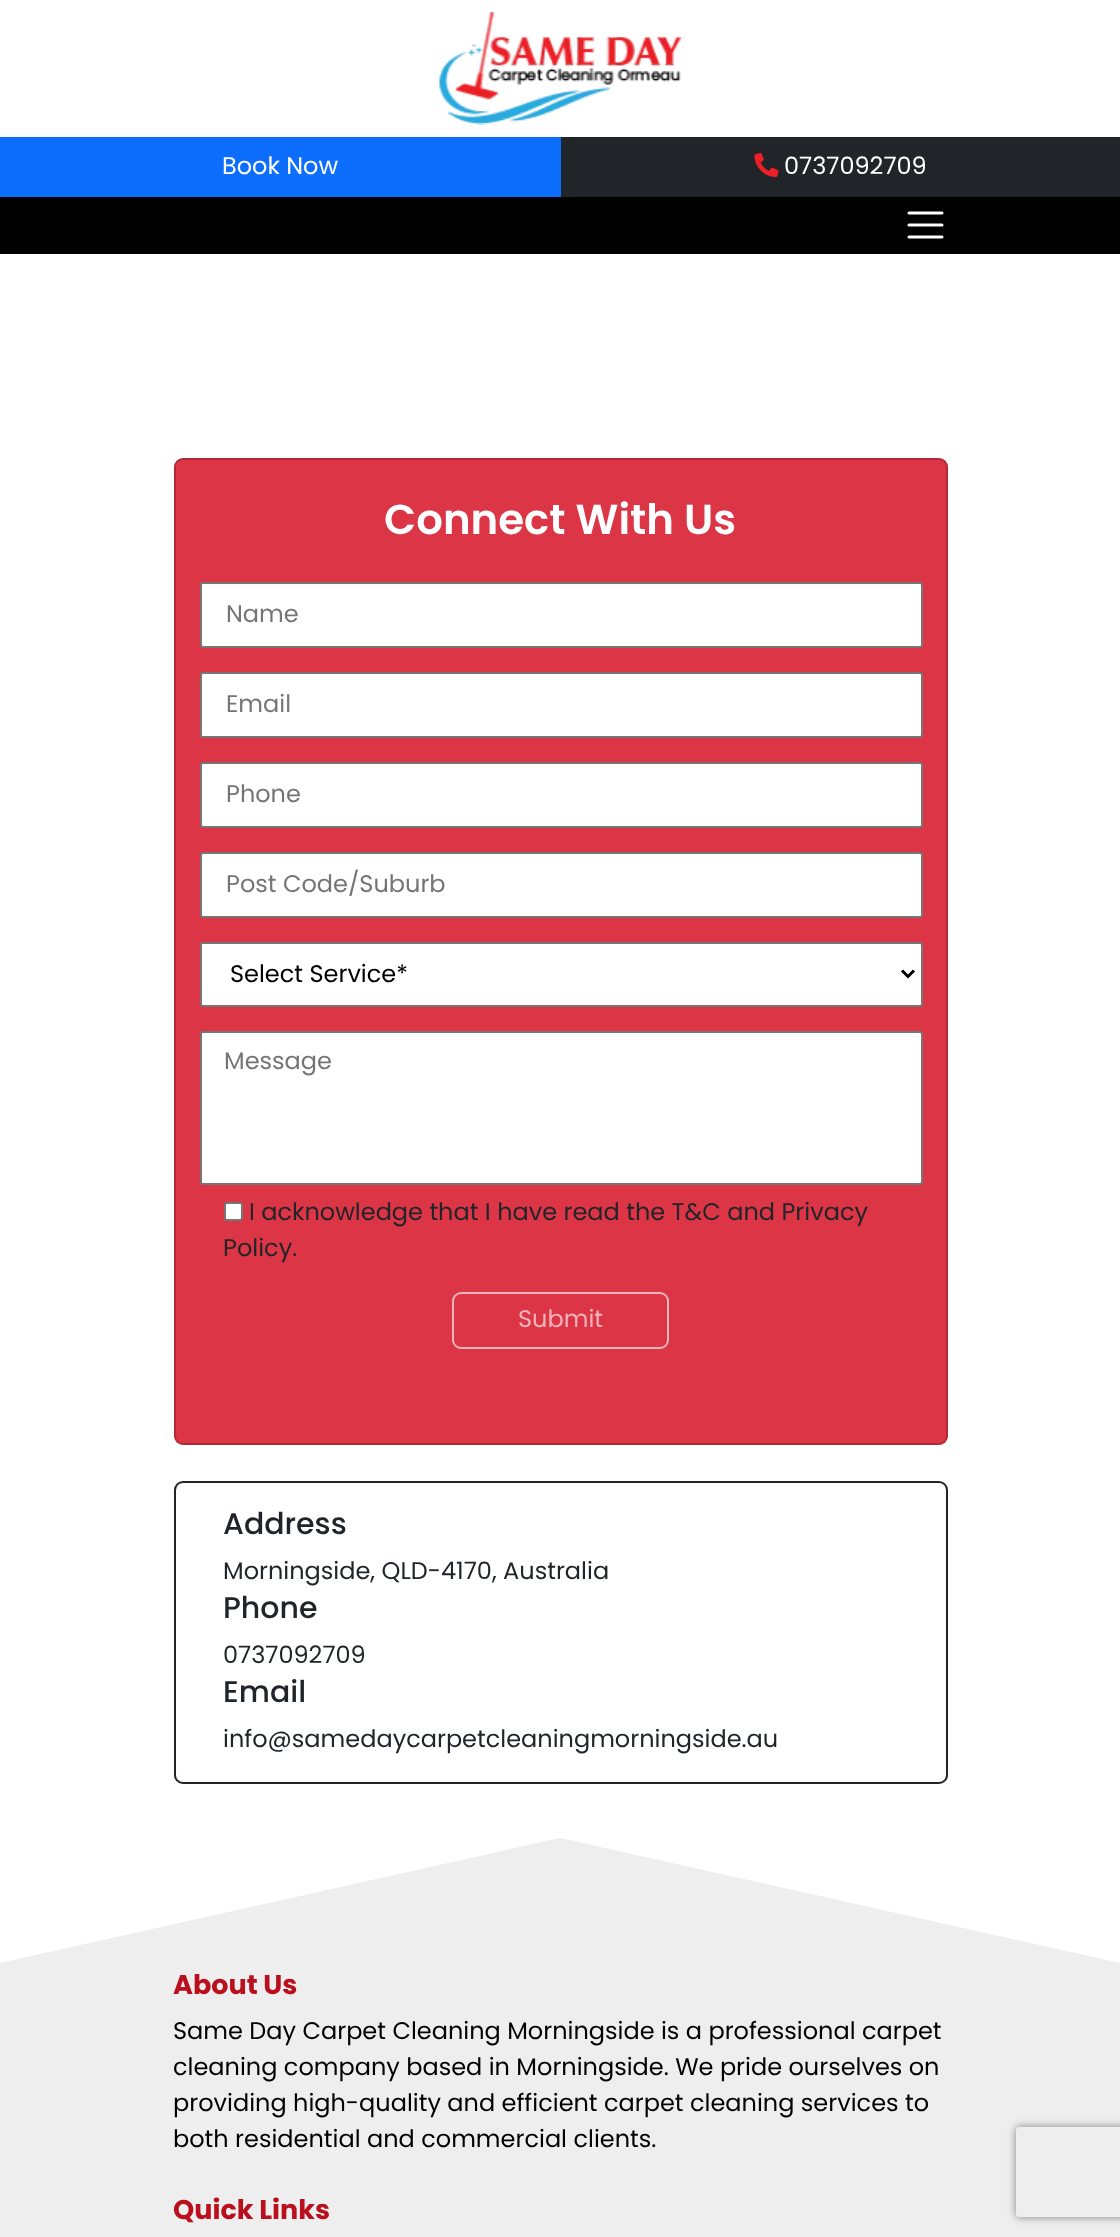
<?xml version="1.0" encoding="UTF-8"?>
<svg xmlns="http://www.w3.org/2000/svg" width="1120" height="2237">
    <defs>
        <clipPath id="clip1"><path d="M 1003 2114 H 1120 V 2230 H 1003 Z M 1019 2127 H 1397 C 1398.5 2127 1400 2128.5 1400 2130 V 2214 C 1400 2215.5 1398.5 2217 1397 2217 H 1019 C 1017.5 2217 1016 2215.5 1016 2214 V 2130 C 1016 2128.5 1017.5 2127 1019 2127 Z" clip-rule="evenodd"/></clipPath>
        <filter id="blur1" x="-50%" y="-200%" width="200%" height="500%"><feGaussianBlur stdDeviation="4"/></filter>
    </defs>
    <rect width="100%" height="100%" fill="#FFFFFF"/>
    <image x="439" y="12" width="244" height="113" href="img_01.png"/>
    <rect x="0" y="137" width="561" height="60" fill="#0D6EFD"/>
    <text x="222" y="174" font-family="Poppins" font-size="24" fill="#FFFFFF">Book Now</text>
    <rect x="561" y="137" width="559" height="60" fill="#212529"/>
    <image x="754" y="153" width="25" height="24" href="img_02.png"/>
    <text x="784" y="174" font-family="Poppins" font-size="24" fill="#FFFFFF">0737092709</text>
    <rect x="0" y="197" width="1120" height="57" fill="#000000"/>
    <path d="M 909 213 H 942 M 909 225 H 942 M 909 237 H 942" fill="none" stroke="#FFFFFF" stroke-width="3" stroke-linecap="round"/>
    <rect x="174" y="458" width="774" height="987" rx="9" fill="#DC3545"/>
    <rect x="175" y="459" width="772" height="985" rx="8" fill="none" stroke="#000000" stroke-opacity="0.18" stroke-width="2"/>
    <text x="384" y="534" font-family="Poppins" font-size="41.9" font-weight="600" fill="#FFFFFF">Connect With Us</text>
    <rect x="201" y="583" width="721" height="64" rx="2" fill="#FFFFFF" stroke="#767676" stroke-width="2"/>
    <text x="226" y="622" font-family="Poppins" font-size="24" fill="#757575">Name</text>
    <rect x="201" y="673" width="721" height="64" rx="2" fill="#FFFFFF" stroke="#767676" stroke-width="2"/>
    <text x="226" y="712" font-family="Poppins" font-size="24" fill="#757575">Email</text>
    <rect x="201" y="763" width="721" height="64" rx="2" fill="#FFFFFF" stroke="#767676" stroke-width="2"/>
    <text x="226" y="802" font-family="Poppins" font-size="24" fill="#757575">Phone</text>
    <rect x="201" y="853" width="721" height="64" rx="2" fill="#FFFFFF" stroke="#767676" stroke-width="2"/>
    <text x="226" y="892" font-family="Poppins" font-size="24" fill="#757575">Post Code/Suburb</text>
    <rect x="201" y="943" width="721" height="63" rx="2" fill="#FFFFFF" stroke="#767676" stroke-width="2"/>
    <path d="M 902 970.5 L 908 976.5 L 914 970.5" fill="none" stroke="#000000" stroke-width="3"/>
    <text x="230" y="982" font-family="Poppins" font-size="24" fill="#000000">Select Service*</text>
    <rect x="201" y="1032" width="721" height="152" rx="2" fill="#FFFFFF" stroke="#767676" stroke-width="2"/>
    <text x="224" y="1069" font-family="Poppins" font-size="24" fill="#757575">Message</text>
    <rect x="225" y="1203" width="17" height="17" rx="2" fill="#FFFFFF" stroke="#767676" stroke-width="2"/>
    <text x="249" y="1220" font-family="Poppins" font-size="24" fill="#212529">I acknowledge that I have read the T&amp;C and Privacy</text>
    <text x="223" y="1256" font-family="Poppins" font-size="24" fill="#212529">Policy.</text>
    <rect x="453" y="1293" width="215" height="55" rx="8" fill="none" stroke="#EEB4BB" stroke-width="2"/>
    <text x="518" y="1327" font-family="Poppins" font-size="24" fill="#EEB4BB">Submit</text>
    <rect x="175" y="1482" width="772" height="301" rx="8" fill="none" stroke="#212529" stroke-width="2"/>
    <text x="223" y="1534" font-family="Poppins" font-size="30" font-weight="500" fill="#212529">Address</text>
    <text x="223" y="1579" font-family="Poppins" font-size="24" fill="#212529">Morningside, QLD-4170, Australia</text>
    <text x="223" y="1618" font-family="Poppins" font-size="30" font-weight="500" fill="#212529">Phone</text>
    <text x="223" y="1663" font-family="Poppins" font-size="24" fill="#212529">0737092709</text>
    <text x="223" y="1702" font-family="Poppins" font-size="30" font-weight="500" fill="#212529">Email</text>
    <text x="223" y="1747" font-family="Poppins" font-size="24" fill="#212529">info@samedaycarpetcleaningmorningside.au</text>
    <path d="M 560 1838 L 0 1963 V 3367 L 1120 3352 V 1963 Z" fill="#EEEEEE"/>
    <text x="173" y="1994" font-family="Poppins" font-size="27" font-weight="700" fill="#BA101D">About Us</text>
    <text font-family="Poppins" font-size="24" fill="#000000">
        <tspan x="173" y="2039">Same Day Carpet Cleaning Morningside is a professional carpet</tspan>
        <tspan x="173" y="2075">cleaning company based in Morningside. We pride ourselves on</tspan>
        <tspan x="173" y="2111">providing high-quality and efficient carpet cleaning services to</tspan>
        <tspan x="173" y="2147">both residential and commercial clients.</tspan>
    </text>
    <text x="173" y="2219" font-family="Poppins" font-size="27" font-weight="700" fill="#BA101D">Quick Links</text>
    <g clip-path="url(#clip1)">
        <rect x="1016" y="2127" width="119" height="90" rx="3" fill="#808080" filter="url(#blur1)"/>
    </g>
</svg>
